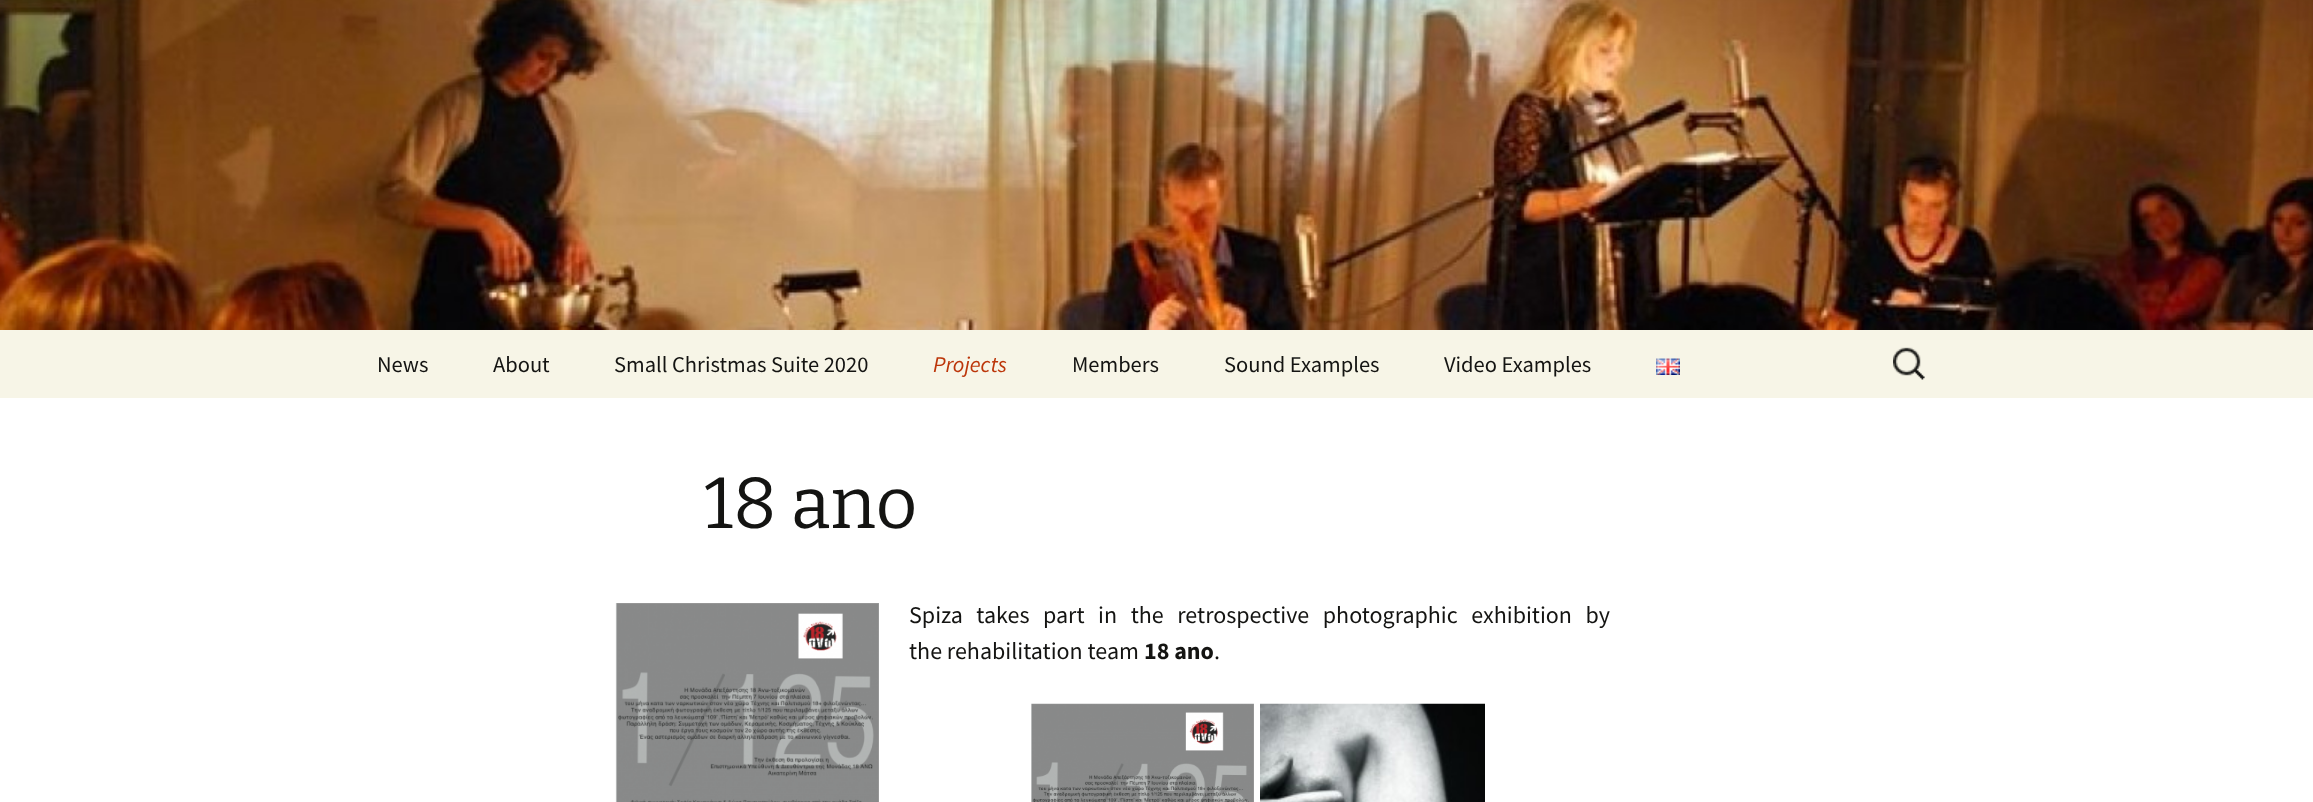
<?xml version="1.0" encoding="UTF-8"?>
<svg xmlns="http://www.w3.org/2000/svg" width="2313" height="802">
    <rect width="100%" height="100%" fill="#FFFFFF"/>
    <image x="0" y="0" width="2313" height="330" href="img_01.png"/>
    <rect x="0" y="330" width="2313" height="68" fill="#F7F5E7"/>
    <text x="377" y="372" font-family="Source Sans Pro" font-size="22.5" fill="#141412">News</text>
    <text x="493" y="372" font-family="Source Sans Pro" font-size="22.5" fill="#141412">About</text>
    <text x="614" y="372" font-family="Source Sans Pro" font-size="22.5" fill="#141412">Small Christmas Suite 2020</text>
    <text x="933" y="372" font-family="Source Sans Pro" font-size="22.5" font-style="italic" fill="#BC360A">Projects</text>
    <text x="1072" y="372" font-family="Source Sans Pro" font-size="22.5" fill="#141412">Members</text>
    <text x="1224" y="372" font-family="Source Sans Pro" font-size="22.5" fill="#141412">Sound Examples</text>
    <text x="1444" y="372" font-family="Source Sans Pro" font-size="22.5" fill="#141412">Video Examples</text>
    <image x="1656" y="358" width="24" height="17" href="img_02.png"/>
    <image x="1893" y="347" width="32" height="33" href="img_03.png"/>
    <text x="704" y="528" font-family="Bitter" font-size="72" fill="#141412">18 ano</text>
    <image x="615" y="603" width="264" height="199" href="img_04.png"/>
    <text font-family="Source Sans Pro" font-size="24" fill="#141412">
        <tspan x="909" y="623" word-spacing="8.75">Spiza takes part in the retrospective photographic exhibition by</tspan>
        <tspan x="909" y="659">the rehabilitation team</tspan>
    </text>
    <text x="1144" y="659" font-family="Source Sans Pro" font-size="24" font-weight="700" fill="#141412">18 ano</text>
    <text x="1214" y="659" font-family="Source Sans Pro" font-size="24" fill="#141412">.</text>
    <image x="1031" y="703" width="223" height="99" href="img_05.png"/>
    <image x="1260" y="703" width="225" height="99" href="img_06.png"/>
</svg>
